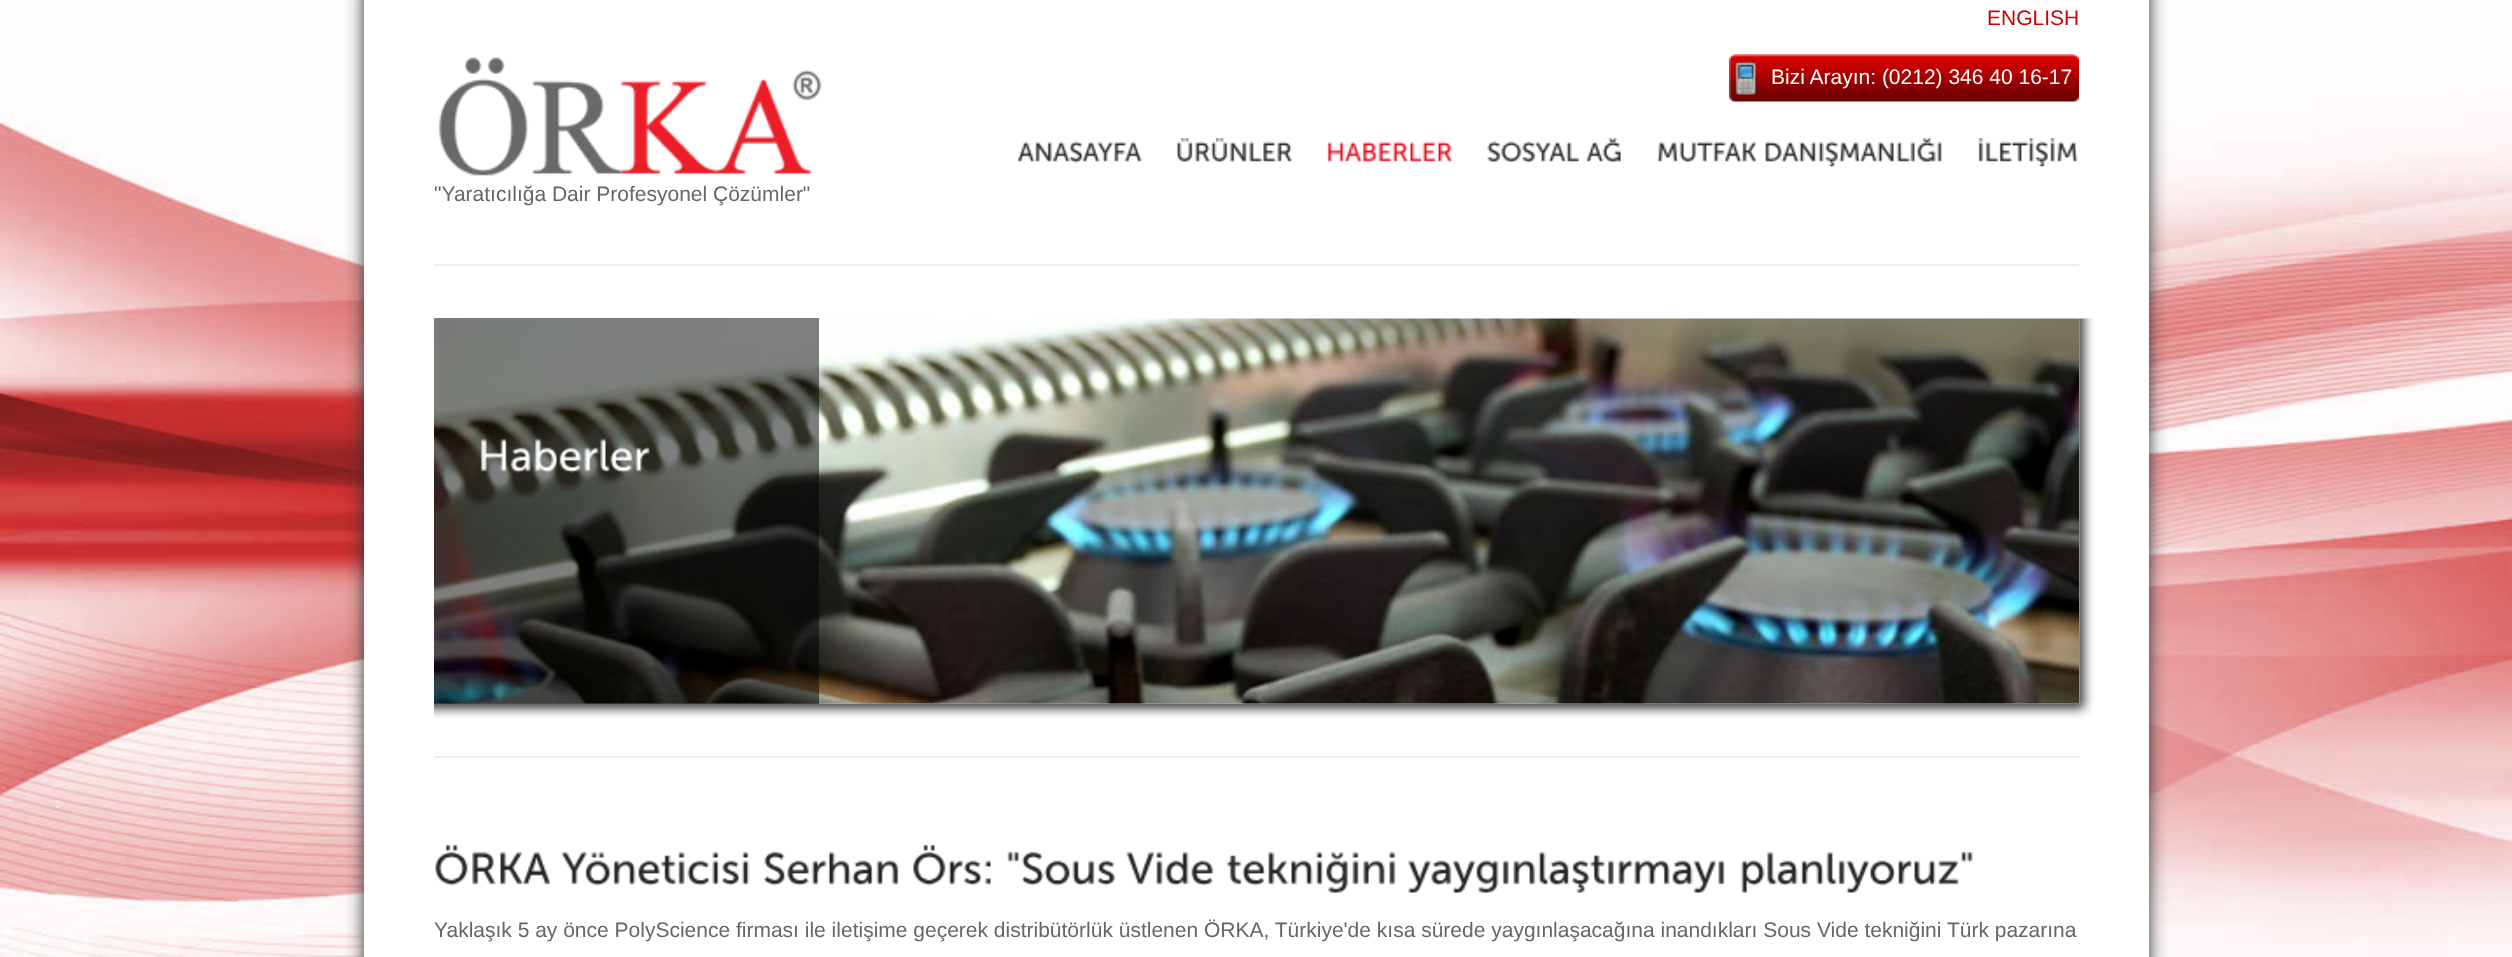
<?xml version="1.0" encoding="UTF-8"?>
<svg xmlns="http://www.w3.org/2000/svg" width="2512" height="957">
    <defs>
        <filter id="blur1" x="-50%" y="-200%" width="200%" height="500%"><feGaussianBlur stdDeviation="9"/></filter>
    </defs>
    <rect width="100%" height="100%" fill="#FFFFFF"/>
    <image x="0" y="0" width="2512" height="957" href="img_01.png"/>
    <rect x="364" y="-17" width="1785" height="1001" fill="#333333" filter="url(#blur1)"/>
    <rect x="364" y="0" width="1785" height="957" fill="#FFFFFF"/>
    <text x="1987" y="25" font-family="Liberation Sans" font-size="21" fill="#C70505">ENGLISH</text>
    <image x="1729" y="54" width="350" height="48" href="img_02.png"/>
    <text x="1771" y="84" font-family="Liberation Sans" font-size="21" fill="#FFFFFF">Bizi Arayın: (0212) 346 40 16-17</text>
    <image x="1017" y="141" width="125" height="22" href="img_03.png"/>
    <image x="1176" y="138" width="116" height="25" href="img_04.png"/>
    <image x="1327" y="141" width="126" height="21" href="img_05.png"/>
    <image x="1487" y="141" width="92" height="23" href="img_06.png"/>
    <image x="1586" y="138" width="35" height="25" href="img_07.png"/>
    <image x="1657" y="141" width="101" height="22" href="img_08.png"/>
    <image x="1765" y="138" width="178" height="29" href="img_09.png"/>
    <image x="1978" y="138" width="100" height="29" href="img_10.png"/>
    <image x="438" y="57" width="384" height="119" href="img_11.png"/>
    <text x="434" y="201" font-family="Liberation Sans" font-size="21" fill="#666666">"Yaratıcılığa Dair Profesyonel Çözümler"</text>
    <rect x="434" y="264" width="1645" height="2" fill="#EFEFEF"/>
    <image x="434" y="318" width="1660" height="400" href="img_12.png"/>
    <image x="434" y="318" width="1645" height="386" href="img_13.png"/>
    <rect x="434" y="318" width="385" height="386" fill="#000000" fill-opacity="0.5"/>
    <image x="480" y="438" width="170" height="35" href="img_14.png"/>
    <rect x="434" y="756" width="1645" height="2" fill="#EFEFEF"/>
    <image x="435" y="845" width="115" height="41" href="img_15.png"/>
    <image x="561" y="851" width="189" height="35" href="img_16.png"/>
    <image x="764" y="851" width="135" height="35" href="img_17.png"/>
    <image x="913" y="845" width="78" height="41" href="img_18.png"/>
    <image x="1007" y="851" width="109" height="35" href="img_19.png"/>
    <image x="1126" y="851" width="88" height="35" href="img_20.png"/>
    <image x="1226" y="851" width="170" height="42" href="img_21.png"/>
    <image x="1408" y="851" width="317" height="42" href="img_22.png"/>
    <image x="1741" y="851" width="232" height="42" href="img_23.png"/>
    <text x="434" y="937" font-family="Liberation Sans" font-size="21" fill="#666666">Yaklaşık 5 ay önce PolyScience firması ile iletişime geçerek distribütörlük üstlenen ÖRKA, Türkiye'de kısa sürede yaygınlaşacağına inandıkları Sous Vide tekniğini Türk pazarına</text>
</svg>
